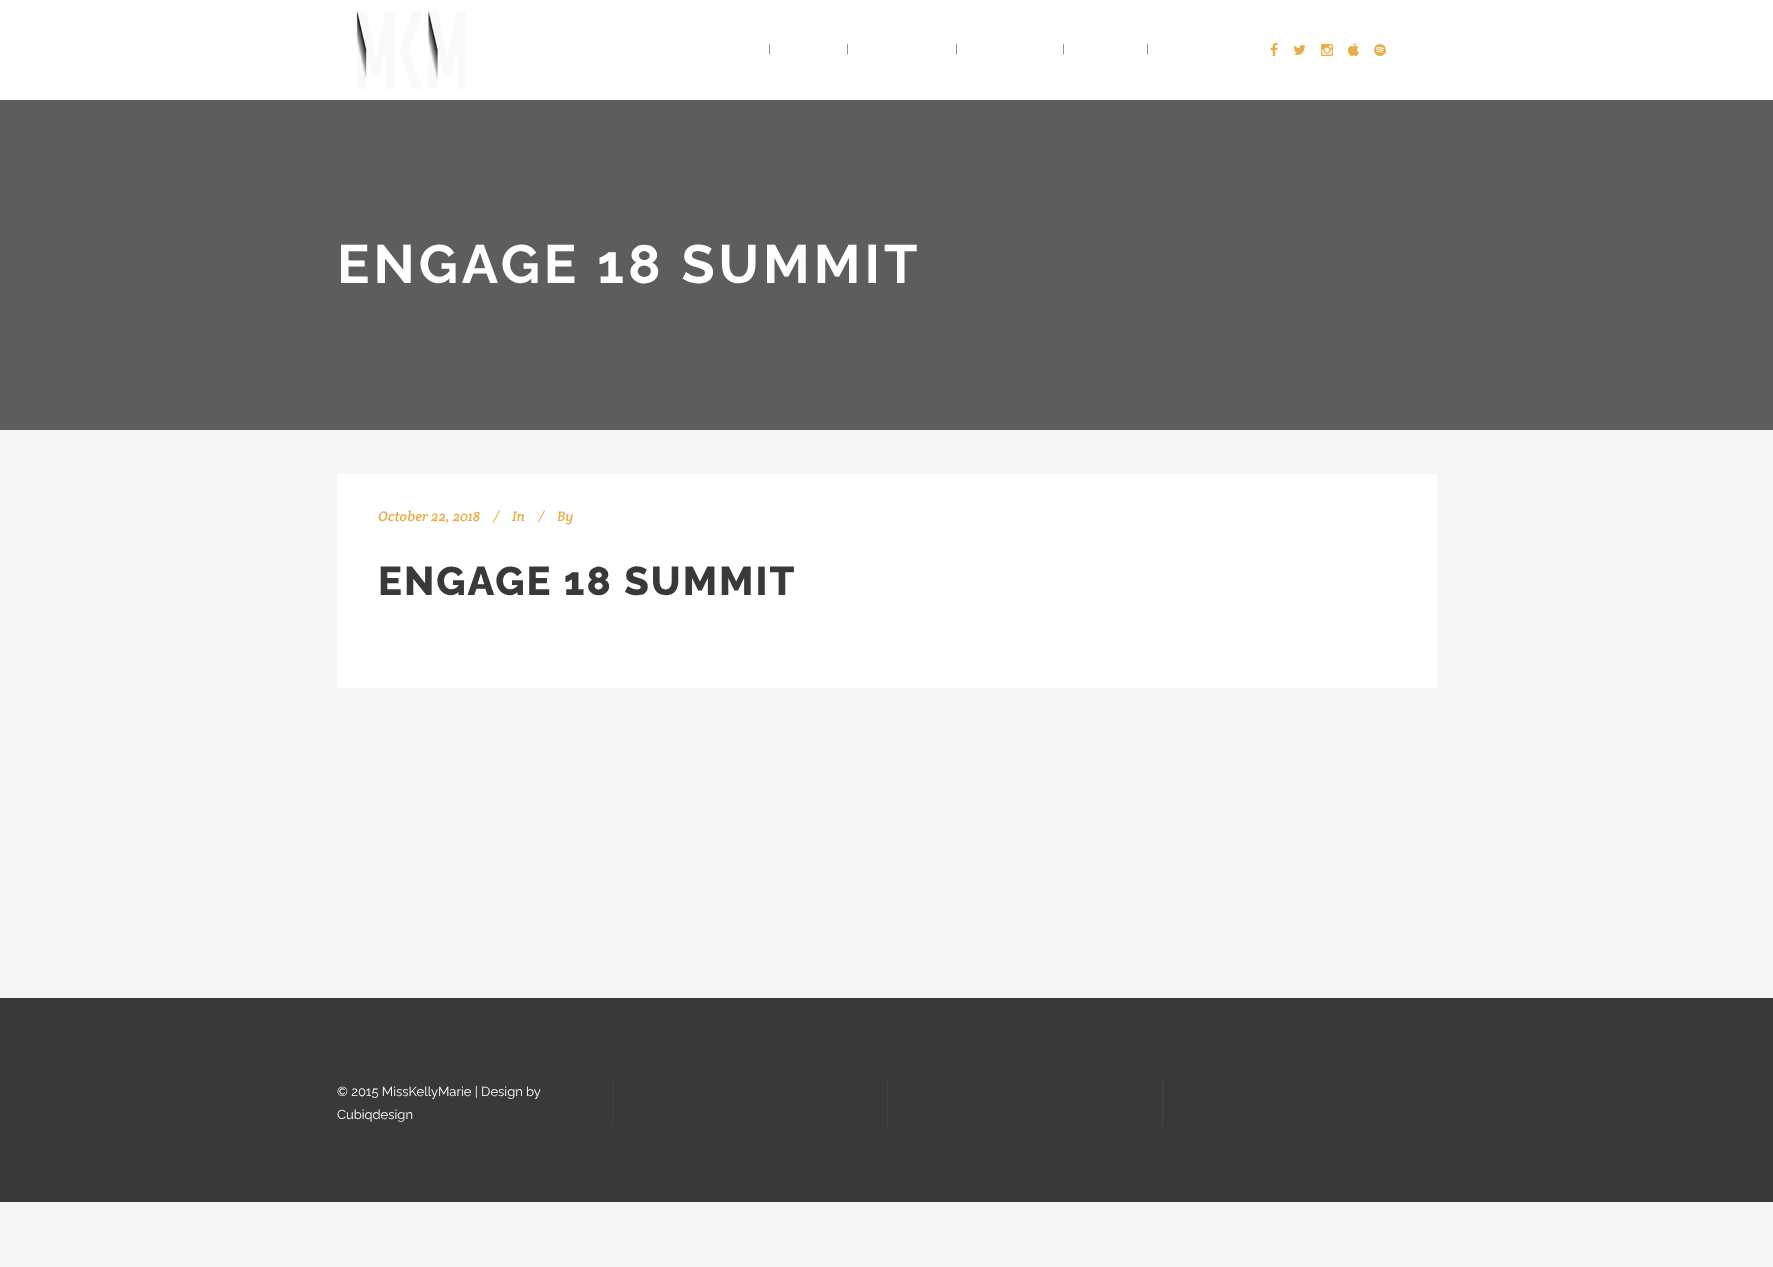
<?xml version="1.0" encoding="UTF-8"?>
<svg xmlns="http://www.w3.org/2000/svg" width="1773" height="1267">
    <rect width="100%" height="100%" fill="#F5F5F5"/>
    <rect x="0" y="0" width="1773" height="100" fill="#FFFFFF"/>
    <image x="356" y="11" width="110" height="78" href="img_01.png"/>
    <text x="768" y="53" font-family="Raleway" font-size="12" fill="#696969">|</text>
    <text x="846" y="53" font-family="Raleway" font-size="12" fill="#696969">|</text>
    <text x="955" y="53" font-family="Raleway" font-size="12" fill="#696969">|</text>
    <text x="1062" y="53" font-family="Raleway" font-size="12" fill="#696969">|</text>
    <text x="1146" y="53" font-family="Raleway" font-size="12" fill="#696969">|</text>
    <image x="1270" y="43" width="8" height="13" href="img_02.png"/>
    <image x="1293" y="45" width="13" height="10" href="img_03.png"/>
    <image x="1321" y="44" width="12" height="12" href="img_04.png"/>
    <image x="1348" y="43" width="11" height="13" href="img_05.png"/>
    <image x="1374" y="44" width="12" height="12" href="img_06.png"/>
    <rect x="0" y="100" width="1773" height="330" fill="#5D5D5D"/>
    <text x="337" y="283" font-family="Raleway" font-size="54" font-weight="700" letter-spacing="4" fill="#FFFFFF">ENGAGE 18 SUMMIT</text>
    <rect x="337" y="474" width="1100" height="214" fill="#FFFFFF"/>
    <text x="378" y="521" font-family="Crete Round" font-size="14" font-style="italic" fill="#E6AE48">October 22, 2018</text>
    <text x="493" y="521" font-family="Crete Round" font-size="14" font-style="italic" fill="#E6AE48">/</text>
    <text x="512" y="521" font-family="Crete Round" font-size="14" font-style="italic" fill="#E6AE48">In</text>
    <text x="538" y="521" font-family="Crete Round" font-size="14" font-style="italic" fill="#E6AE48">/</text>
    <text x="557" y="521" font-family="Crete Round" font-size="14" font-style="italic" fill="#E6AE48">By</text>
    <text x="378" y="595" font-family="Raleway" font-size="40" font-weight="800" letter-spacing="2" fill="#393939">ENGAGE 18 SUMMIT</text>
    <rect x="0" y="998" width="1773" height="204" fill="#393939"/>
    <text font-family="Raleway" font-size="13" fill="#FFFFFF">
        <tspan x="337" y="1096">© 2015 MissKellyMarie | Design by</tspan>
        <tspan x="337" y="1119">Cubiqdesign</tspan>
    </text>
    <rect x="612" y="1080" width="1" height="46" fill="#444444"/>
    <rect x="887" y="1080" width="1" height="46" fill="#444444"/>
    <rect x="1162" y="1080" width="1" height="46" fill="#444444"/>
</svg>
